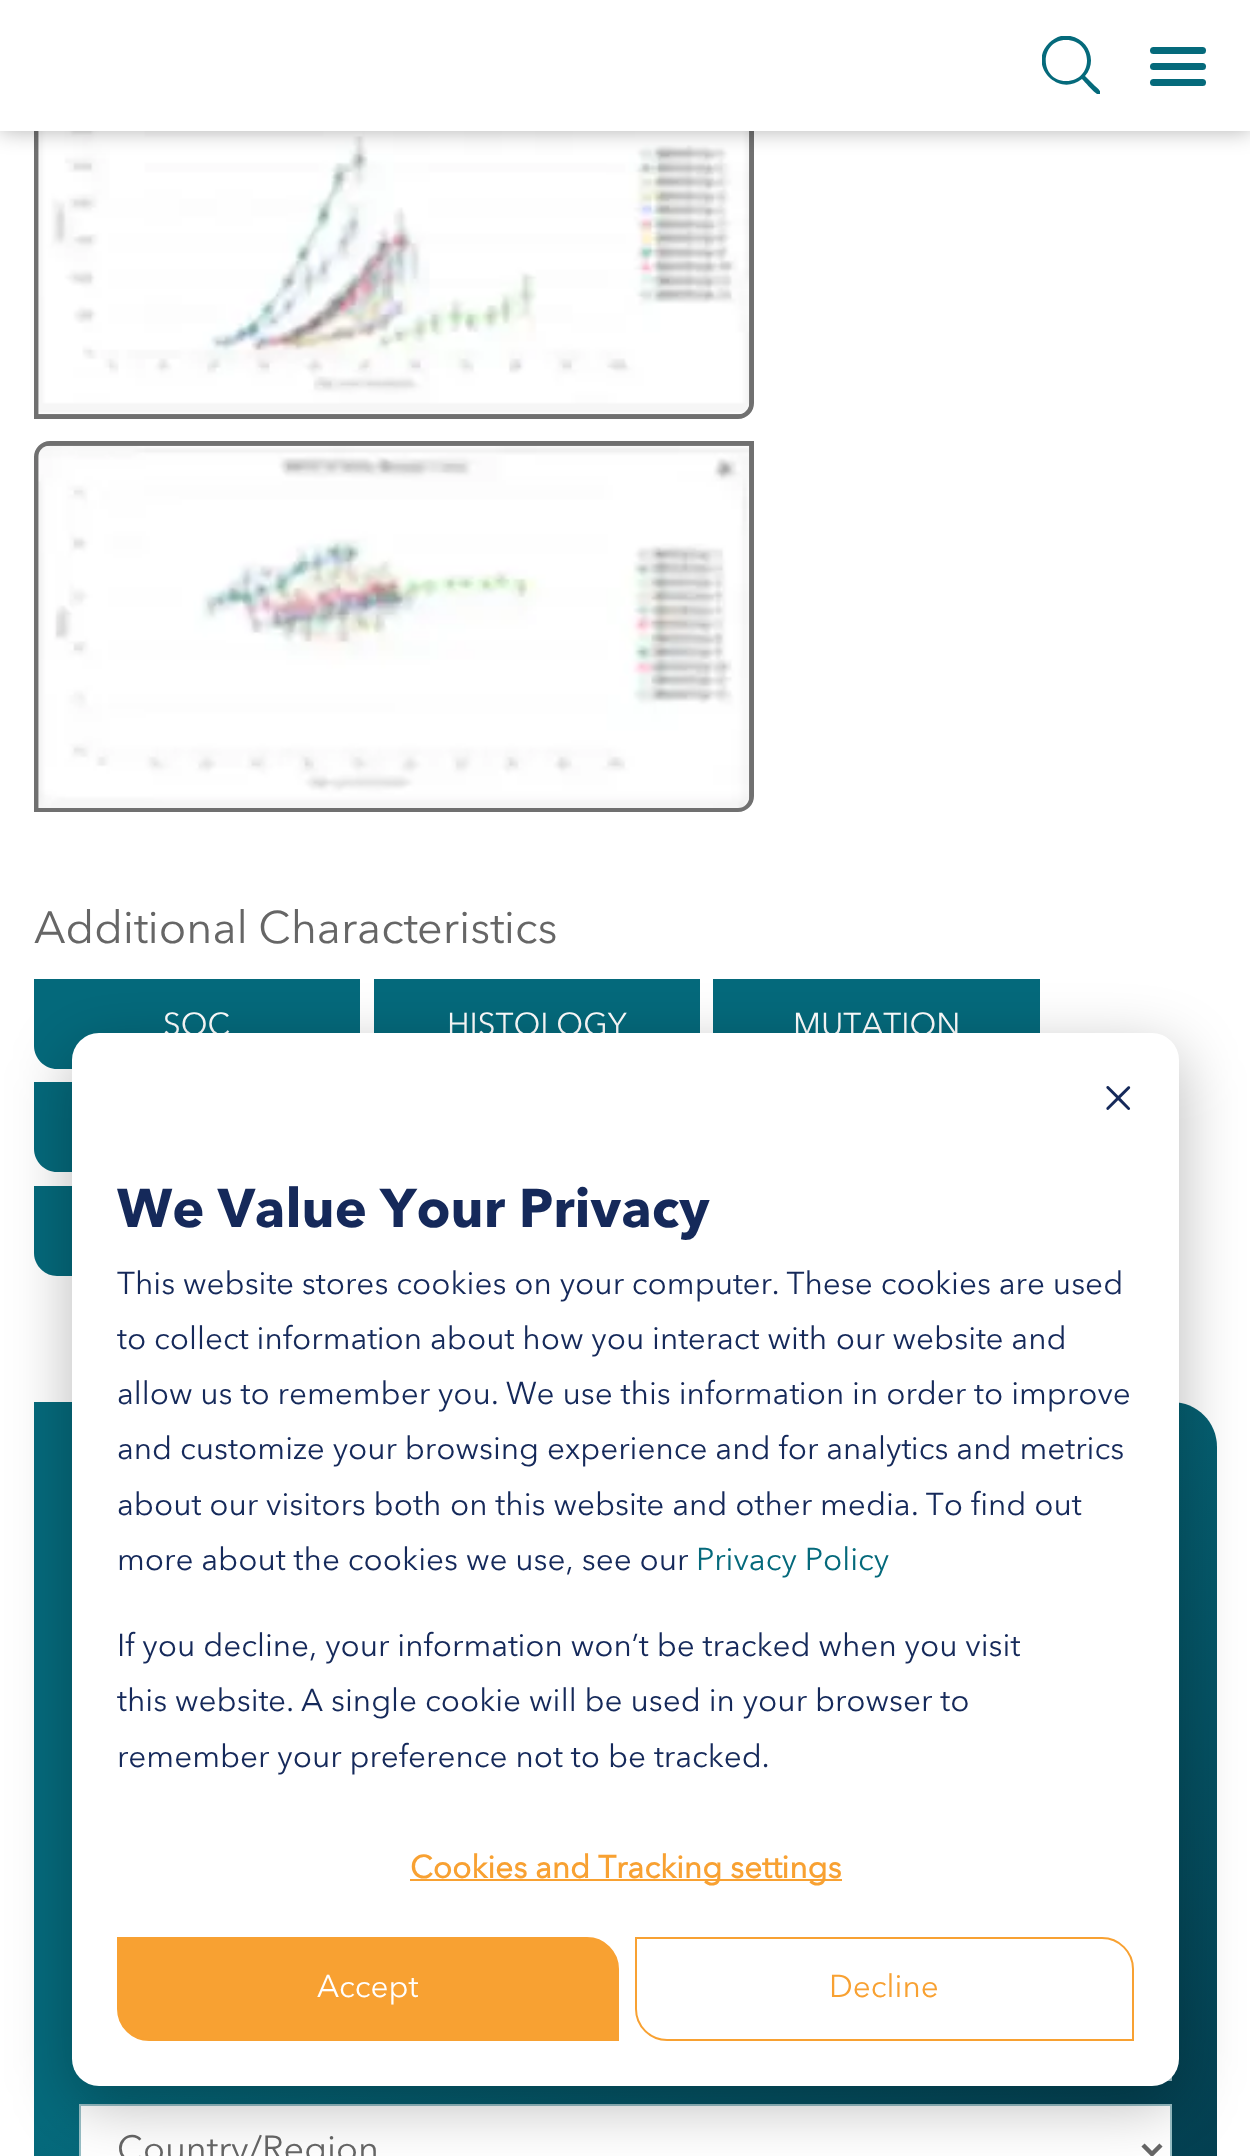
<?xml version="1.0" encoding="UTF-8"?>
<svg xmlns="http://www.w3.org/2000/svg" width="1250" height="2156">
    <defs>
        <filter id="blur1" x="-50%" y="-200%" width="200%" height="500%"><feGaussianBlur stdDeviation="11"/></filter>
        <clipPath id="clip1"><rect x="1042" y="36" width="58" height="59"/></clipPath>
        <linearGradient id="g1" gradientUnits="userSpaceOnUse" x1="30" y1="1405" x2="1221" y2="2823"><stop offset="0.3" stop-color="#056A7C"/><stop offset="1" stop-color="#022334"/></linearGradient>
        <filter id="blur2" x="-50%" y="-200%" width="200%" height="500%"><feGaussianBlur stdDeviation="22.5"/></filter>
        <filter id="blur3" x="-50%" y="-200%" width="200%" height="500%"><feGaussianBlur stdDeviation="31.5"/></filter>
    </defs>
    <rect width="100%" height="100%" fill="#FFFFFF"/>
    <path d="M 50 45.5 H 751.5 V 403 C 751.5 410.5 745.5 416.5 738 416.5 H 36.5 V 59 C 36.5 51.5 42.5 45.5 50 45.5 Z" fill="none" stroke="#707070" stroke-width="5"/>
    <image x="38" y="131" width="712" height="284" href="img_01.png"/>
    <rect x="0" y="0" width="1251" height="131" fill="#000000" fill-opacity="0.3" filter="url(#blur1)"/>
    <rect x="0" y="0" width="1250" height="131" fill="#FFFFFF"/>
    <g clip-path="url(#clip1)">
        <path d="M 1098 94 C 1096 95 1084 81 1082 79 C 1058 98 1027 65 1049 43 C 1052 40 1057 37 1061 36 C 1085 32 1100 59 1085 76 L 1095 86 C 1096 87 1102 91 1100 94 Z M 1066 40 C 1039 40 1039 81 1066 81 C 1094 81 1094 40 1066 40 Z" fill="#056A7B"/>
    </g>
    <rect x="1150" y="63" width="56" height="7" rx="3.5" fill="#056A7B"/>
    <rect x="1150" y="47" width="56" height="7" rx="3.5" fill="#056A7B"/>
    <rect x="1150" y="79" width="56" height="7" rx="3.5" fill="#056A7B"/>
    <path d="M 34 1402 H 1172 C 1197 1402 1217 1422 1217 1447 V 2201 H 79 C 54 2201 34 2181 34 2156 Z" fill="url(#g1)"/>
    <rect x="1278" y="2005" width="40" height="126" fill="#737373" fill-opacity="0.75" filter="url(#blur2)"/>
    <path d="M 50 443.5 H 751.5 V 796 C 751.5 803.5 745.5 809.5 738 809.5 H 36.5 V 457 C 36.5 449.5 42.5 443.5 50 443.5 Z" fill="none" stroke="#707070" stroke-width="5"/>
    <image x="38" y="445" width="712" height="363" href="img_02.png"/>
    <text x="34" y="943" font-family="Avenir Next" font-size="45" fill="#666666">Additional Characteristics</text>
    <path d="M 34 979 H 360 V 1069 H 57 C 44.5 1069 34 1058.5 34 1046 Z" fill="#04697B"/>
    <text x="163" y="1035" font-family="Avenir Next" font-size="31.5" fill="#FFFFFF">SOC</text>
    <rect x="374" y="979" width="326" height="54" fill="#04697B"/>
    <text x="447" y="1035" font-family="Avenir Next" font-size="31.5" fill="#FFFFFF">HISTOLOGY</text>
    <rect x="713" y="979" width="327" height="54" fill="#04697B"/>
    <text x="793" y="1035" font-family="Avenir Next" font-size="31.5" fill="#FFFFFF">MUTATION</text>
    <path d="M 34 1082 H 360 V 1172 H 57 C 44.5 1172 34 1161.5 34 1149 Z" fill="#04697B"/>
    <path d="M 34 1186 H 360 V 1276 H 57 C 44.5 1276 34 1265.5 34 1253 Z" fill="#04697B"/>
    <path d="M 80 1992 H 1171 V 2080 H 102 C 90 2080 80 2070 80 2058 Z" fill="none" stroke="#97BEC5" stroke-width="2"/>
    <rect x="80" y="2105" width="1091" height="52" fill="#FFFFFF" stroke="#97BEC5" stroke-width="2"/>
    <path d="M 1143 2145 L 1152 2154 L 1161 2145" fill="none" stroke="#666666" stroke-width="4.5"/>
    <text x="117" y="2161" font-family="Avenir Next" font-size="36" fill="#666666">Country/Region</text>
    <rect x="72" y="1051" width="1107" height="1053" rx="27" fill="#000000" fill-opacity="0.28" filter="url(#blur3)"/>
    <rect x="72" y="1033" width="1107" height="1053" rx="27" fill="#FFFFFF"/>
    <image x="1106" y="1086" width="25" height="24" href="img_03.png"/>
    <text x="117" y="1227" font-family="Avenir Next" font-size="54" font-weight="700" fill="#15295A">We Value Your Privacy</text>
    <text font-family="Avenir Next" font-size="31.5" fill="#15295A">
        <tspan x="117" y="1294">This website stores cookies on your computer. These cookies are used</tspan>
        <tspan x="117" y="1349">to collect information about how you interact with our website and</tspan>
        <tspan x="117" y="1404">allow us to remember you. We use this information in order to improve</tspan>
        <tspan x="117" y="1459">and customize your browsing experience and for analytics and metrics</tspan>
        <tspan x="117" y="1515">about our visitors both on this website and other media. To find out</tspan>
        <tspan x="117" y="1570">more about the cookies we use, see our</tspan>
    </text>
    <text x="696" y="1570" font-family="Avenir Next" font-size="31.5" fill="#04697B">Privacy Policy</text>
    <text font-family="Avenir Next" font-size="31.5" fill="#15295A">
        <tspan x="117" y="1656">If you decline, your information won’t be tracked when you visit</tspan>
        <tspan x="117" y="1711">this website. A single cookie will be used in your browser to</tspan>
        <tspan x="117" y="1767">remember your preference not to be tracked.</tspan>
    </text>
    <rect x="410" y="1879" width="432" height="2" fill="#F8A132"/>
    <text x="410" y="1878" font-family="'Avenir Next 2'" font-size="31.5" font-weight="700" fill="#F8A132">Cookies and Tracking settings</text>
    <path d="M 118 1938 H 587 C 604 1938 618 1952 618 1969 V 2040 H 149 C 132 2040 118 2026 118 2009 Z" fill="#F8A132" stroke="#F8A132" stroke-width="2"/>
    <text x="317" y="1997" font-family="Avenir Next" font-size="31.5" fill="#FFFFFF">Accept</text>
    <path d="M 636 1938 H 1102 C 1119 1938 1133 1952 1133 1969 V 2040 H 667 C 650 2040 636 2026 636 2009 Z" fill="none" stroke="#F8A132" stroke-width="2"/>
    <text x="829" y="1997" font-family="Avenir Next" font-size="31.5" fill="#F8A132">Decline</text>
</svg>
